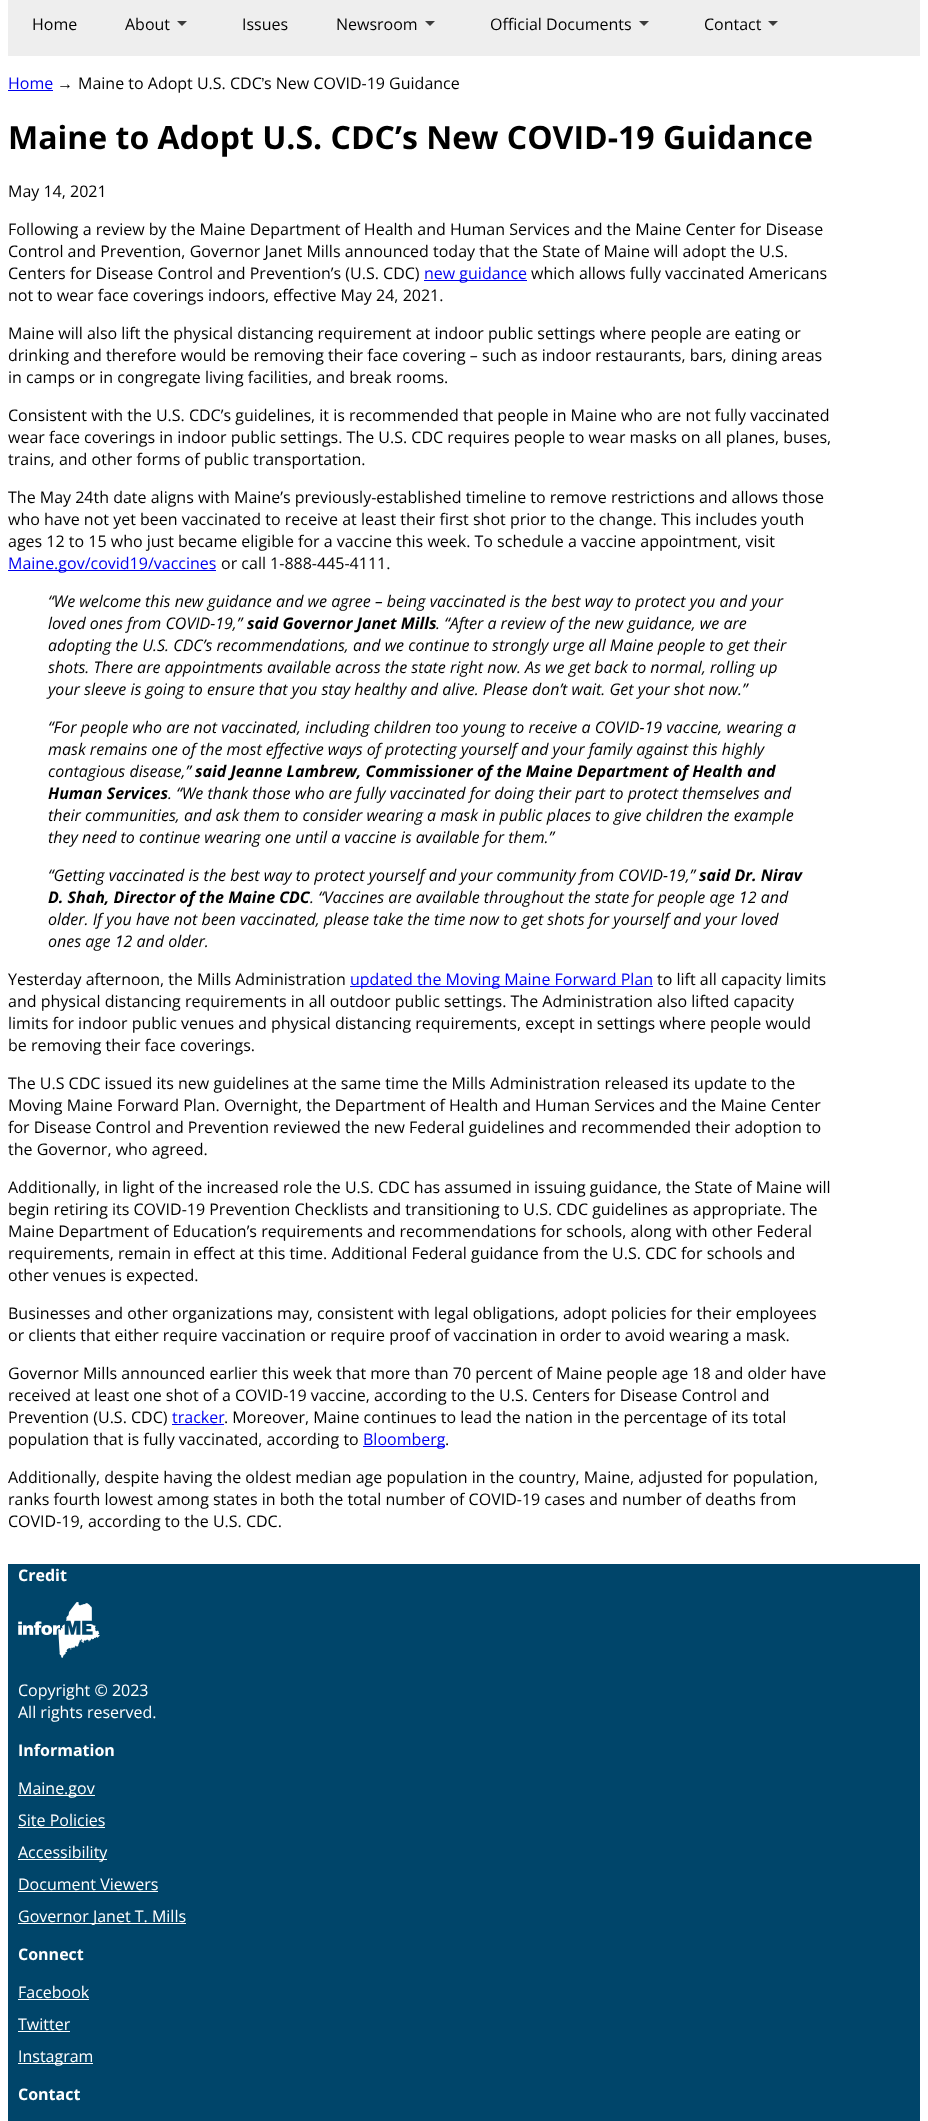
<?xml version="1.0" encoding="UTF-8"?>
<svg xmlns="http://www.w3.org/2000/svg" width="928" height="2121">
    <rect width="100%" height="100%" fill="#FFFFFF"/>
    <rect x="8" y="0" width="912" height="56" fill="#EEEEEE"/>
    <text x="32" y="30" font-family="Open Sans" font-size="16" fill="#000000">Home</text>
    <text x="125" y="30" font-family="Open Sans" font-size="16" fill="#000000">About</text>
    <path d="M 177 21 H 187 L 182 26 Z" fill="#3C3C3C"/>
    <text x="242" y="30" font-family="Open Sans" font-size="16" fill="#000000">Issues</text>
    <text x="336" y="30" font-family="Open Sans" font-size="16" fill="#000000">Newsroom</text>
    <path d="M 425 21 H 435 L 430 26 Z" fill="#3C3C3C"/>
    <text x="490" y="30" font-family="Open Sans" font-size="16" fill="#000000">Official Documents</text>
    <path d="M 639 21 H 649 L 644 26 Z" fill="#3C3C3C"/>
    <text x="704" y="30" font-family="Open Sans" font-size="16" fill="#000000">Contact</text>
    <path d="M 768 21 H 778 L 773 26 Z" fill="#3C3C3C"/>
    <text x="8" y="89" font-family="Open Sans" font-size="16" fill="#0000EE">Home</text>
    <rect x="8" y="90" width="45" height="1" fill="#0000EE"/>
    <text x="78" y="89" font-family="Open Sans" font-size="16" fill="#000000">Maine to Adopt U.S. CDC</text>
    <text x="261" y="89" font-family="Liberation Sans" font-size="16" fill="#000000">’</text>
    <text x="264" y="89" font-family="Open Sans" font-size="16" fill="#000000">s New COVID-19 Guidance</text>
    <text x="57" y="89" font-family="Liberation Sans" font-size="16" fill="#000000">→</text>
    <text x="8" y="149" font-family="Open Sans" font-size="32" font-weight="700" fill="#000000">Maine to Adopt U.S. CDC’s New COVID-19 Guidance</text>
    <text x="8" y="197" font-family="Open Sans" font-size="16" fill="#000000">May 14, 2021</text>
    <text font-family="Open Sans" font-size="16" fill="#000000">
        <tspan x="8" y="235">Following a review by the Maine Department of Health and Human Services and the Maine Center for Disease</tspan>
        <tspan x="8" y="257">Control and Prevention, Governor Janet Mills announced today that the State of Maine will adopt the U.S.</tspan>
        <tspan x="8" y="279">Centers for Disease Control and Prevention’s (U.S. CDC)</tspan>
    </text>
    <rect x="424" y="280" width="103" height="1" fill="#0000EE"/>
    <text x="424" y="279" font-family="Open Sans" font-size="16" fill="#0000EE">new guidance</text>
    <text x="531" y="279" font-family="Open Sans" font-size="16" fill="#000000">which allows fully vaccinated Americans</text>
    <text x="8" y="301" font-family="Open Sans" font-size="16" fill="#000000">not to wear face coverings indoors, effective May 24, 2021.</text>
    <text font-family="Open Sans" font-size="16" fill="#000000">
        <tspan x="8" y="339">Maine will also lift the physical distancing requirement at indoor public settings where people are eating or</tspan>
        <tspan x="8" y="361">drinking and therefore would be removing their face covering – such as indoor restaurants, bars, dining areas</tspan>
        <tspan x="8" y="383">in camps or in congregate living facilities, and break rooms.</tspan>
    </text>
    <text font-family="Open Sans" font-size="16" fill="#000000">
        <tspan x="8" y="421">Consistent with the U.S. CDC’s guidelines, it is recommended that people in Maine who are not fully vaccinated</tspan>
        <tspan x="8" y="443">wear face coverings in indoor public settings. The U.S. CDC requires people to wear masks on all planes, buses,</tspan>
        <tspan x="8" y="465">trains, and other forms of public transportation.</tspan>
    </text>
    <text font-family="Open Sans" font-size="16" fill="#000000">
        <tspan x="8" y="503">The May 24th date aligns with Maine’s previously-established timeline to remove restrictions and allows those</tspan>
        <tspan x="8" y="525">who have not yet been vaccinated to receive at least their first shot prior to the change. This includes youth</tspan>
        <tspan x="8" y="547">ages 12 to 15 who just became eligible for a vaccine this week. To schedule a vaccine appointment, visit</tspan>
    </text>
    <rect x="8" y="570" width="208" height="1" fill="#0000EE"/>
    <text x="8" y="569" font-family="Open Sans" font-size="16" fill="#0000EE">Maine.gov/covid19/vaccines</text>
    <text x="221" y="569" font-family="Open Sans" font-size="16" fill="#000000">or call 1-888-445-4111.</text>
    <text font-family="Open Sans" font-size="16" font-style="italic" fill="#000000">
        <tspan x="48" y="607">“We welcome this new guidance and we agree – being vaccinated is the best way to protect you and your</tspan>
        <tspan x="48" y="629">loved ones from COVID-19,”</tspan>
    </text>
    <text x="247" y="629" font-family="Open Sans" font-size="16" font-weight="700" font-style="italic" fill="#000000">said Governor Janet Mills</text>
    <text x="436" y="629" font-family="Open Sans" font-size="16" font-style="italic" fill="#000000">. “After a review of the new guidance, we are</text>
    <text font-family="Open Sans" font-size="16" font-style="italic" fill="#000000">
        <tspan x="48" y="651">adopting the U.S. CDC’s recommendations, and we continue to strongly urge all Maine people to get their</tspan>
        <tspan x="48" y="673">shots. There are appointments available across the state right now. As we get back to normal, rolling up</tspan>
        <tspan x="48" y="695">your sleeve is going to ensure that you stay healthy and alive. Please don’t wait. Get your shot now.”</tspan>
    </text>
    <text font-family="Open Sans" font-size="16" font-style="italic" fill="#000000">
        <tspan x="48" y="733">“For people who are not vaccinated, including children too young to receive a COVID-19 vaccine, wearing a</tspan>
        <tspan x="48" y="755">mask remains one of the most effective ways of protecting yourself and your family against this highly</tspan>
        <tspan x="48" y="777">contagious disease,”</tspan>
    </text>
    <text x="195" y="777" font-family="Open Sans" font-size="16" font-weight="700" font-style="italic" fill="#000000">said Jeanne Lambrew, Commissioner of the Maine Department of Health and</text>
    <text x="48" y="799" font-family="Open Sans" font-size="16" font-weight="700" font-style="italic" fill="#000000">Human Services</text>
    <text x="168" y="799" font-family="Open Sans" font-size="16" font-style="italic" fill="#000000">. “We thank those who are fully vaccinated for doing their part to protect themselves and</text>
    <text font-family="Open Sans" font-size="16" font-style="italic" fill="#000000">
        <tspan x="48" y="821">their communities, and ask them to consider wearing a mask in public places to give children the example</tspan>
        <tspan x="48" y="843">they need to continue wearing one until a vaccine is available for them.”</tspan>
    </text>
    <text x="48" y="881" font-family="Open Sans" font-size="16" font-style="italic" fill="#000000">“Getting vaccinated is the best way to protect yourself and your community from COVID-19,”</text>
    <text x="699" y="881" font-family="Open Sans" font-size="16" font-weight="700" font-style="italic" fill="#000000">said Dr. Nirav</text>
    <text x="48" y="903" font-family="Open Sans" font-size="16" font-weight="700" font-style="italic" fill="#000000">D. Shah, Director of the Maine CDC</text>
    <text x="310" y="903" font-family="Open Sans" font-size="16" font-style="italic" fill="#000000">. “Vaccines are available throughout the state for people age 12 and</text>
    <text font-family="Open Sans" font-size="16" font-style="italic" fill="#000000">
        <tspan x="48" y="925">older. If you have not been vaccinated, please take the time now to get shots for yourself and your loved</tspan>
        <tspan x="48" y="947">ones age 12 and older.</tspan>
    </text>
    <text x="8" y="985" font-family="Open Sans" font-size="16" fill="#000000">Yesterday afternoon, the Mills Administration</text>
    <rect x="350" y="986" width="303" height="1" fill="#0000EE"/>
    <text x="350" y="985" font-family="Open Sans" font-size="16" fill="#0000EE">updated the Moving Maine Forward Plan</text>
    <text x="657" y="985" font-family="Open Sans" font-size="16" fill="#000000">to lift all capacity limits</text>
    <text font-family="Open Sans" font-size="16" fill="#000000">
        <tspan x="8" y="1007">and physical distancing requirements in all outdoor public settings. The Administration also lifted capacity</tspan>
        <tspan x="8" y="1029">limits for indoor public venues and physical distancing requirements, except in settings where people would</tspan>
        <tspan x="8" y="1051">be removing their face coverings.</tspan>
    </text>
    <text font-family="Open Sans" font-size="16" fill="#000000">
        <tspan x="8" y="1089">The U.S CDC issued its new guidelines at the same time the Mills Administration released its update to the</tspan>
        <tspan x="8" y="1111">Moving Maine Forward Plan. Overnight, the Department of Health and Human Services and the Maine Center</tspan>
        <tspan x="8" y="1133">for Disease Control and Prevention reviewed the new Federal guidelines and recommended their adoption to</tspan>
        <tspan x="8" y="1155">the Governor, who agreed.</tspan>
    </text>
    <text font-family="Open Sans" font-size="16" fill="#000000">
        <tspan x="8" y="1193">Additionally, in light of the increased role the U.S. CDC has assumed in issuing guidance, the State of Maine will</tspan>
        <tspan x="8" y="1215">begin retiring its COVID-19 Prevention Checklists and transitioning to U.S. CDC guidelines as appropriate. The</tspan>
        <tspan x="8" y="1237">Maine Department of Education’s requirements and recommendations for schools, along with other Federal</tspan>
        <tspan x="8" y="1259">requirements, remain in effect at this time. Additional Federal guidance from the U.S. CDC for schools and</tspan>
        <tspan x="8" y="1281">other venues is expected.</tspan>
    </text>
    <text font-family="Open Sans" font-size="16" fill="#000000">
        <tspan x="8" y="1319">Businesses and other organizations may, consistent with legal obligations, adopt policies for their employees</tspan>
        <tspan x="8" y="1341">or clients that either require vaccination or require proof of vaccination in order to avoid wearing a mask.</tspan>
    </text>
    <text font-family="Open Sans" font-size="16" fill="#000000">
        <tspan x="8" y="1379">Governor Mills announced earlier this week that more than 70 percent of Maine people age 18 and older have</tspan>
        <tspan x="8" y="1401">received at least one shot of a COVID-19 vaccine, according to the U.S. Centers for Disease Control and</tspan>
        <tspan x="8" y="1423">Prevention (U.S. CDC)</tspan>
    </text>
    <text x="172" y="1423" font-family="Open Sans" font-size="16" fill="#0000EE">tracker</text>
    <rect x="172" y="1424" width="52" height="1" fill="#0000EE"/>
    <text x="224" y="1423" font-family="Open Sans" font-size="16" fill="#000000">. Moreover, Maine continues to lead the nation in the percentage of its total</text>
    <text x="8" y="1445" font-family="Open Sans" font-size="16" fill="#000000">population that is fully vaccinated, according to</text>
    <rect x="363" y="1446" width="82" height="1" fill="#0000EE"/>
    <text x="363" y="1445" font-family="Open Sans" font-size="16" fill="#0000EE">Bloomberg</text>
    <text x="445" y="1445" font-family="Open Sans" font-size="16" fill="#000000">.</text>
    <text font-family="Open Sans" font-size="16" fill="#000000">
        <tspan x="8" y="1483">Additionally, despite having the oldest median age population in the country, Maine, adjusted for population,</tspan>
        <tspan x="8" y="1505">ranks fourth lowest among states in both the total number of COVID-19 cases and number of deaths from</tspan>
        <tspan x="8" y="1527">COVID-19, according to the U.S. CDC.</tspan>
    </text>
    <rect x="8" y="1564" width="912" height="557" fill="#00456A"/>
    <text x="18" y="1581" font-family="Open Sans" font-size="16" font-weight="700" fill="#FFFFFF">Credit</text>
    <image x="18" y="1602" width="82" height="56" href="img_01.png"/>
    <text font-family="Open Sans" font-size="16" fill="#FFFFFF">
        <tspan x="18" y="1696">Copyright © 2023</tspan>
        <tspan x="18" y="1718">All rights reserved.</tspan>
    </text>
    <text x="18" y="1756" font-family="Open Sans" font-size="16" font-weight="700" fill="#FFFFFF">Information</text>
    <rect x="18" y="1795" width="77" height="1" fill="#FFFFFF"/>
    <text x="18" y="1794" font-family="Open Sans" font-size="16" fill="#FFFFFF">Maine.gov</text>
    <text x="18" y="1826" font-family="Open Sans" font-size="16" fill="#FFFFFF">Site Policies</text>
    <rect x="18" y="1827" width="87" height="1" fill="#FFFFFF"/>
    <rect x="18" y="1859" width="89" height="1" fill="#FFFFFF"/>
    <text x="18" y="1858" font-family="Open Sans" font-size="16" fill="#FFFFFF">Accessibility</text>
    <text x="18" y="1890" font-family="Open Sans" font-size="16" fill="#FFFFFF">Document Viewers</text>
    <rect x="18" y="1891" width="140" height="1" fill="#FFFFFF"/>
    <rect x="18" y="1923" width="168" height="1" fill="#FFFFFF"/>
    <text x="18" y="1922" font-family="Open Sans" font-size="16" fill="#FFFFFF">Governor Janet T. Mills</text>
    <text x="18" y="1960" font-family="Open Sans" font-size="16" font-weight="700" fill="#FFFFFF">Connect</text>
    <text x="18" y="1998" font-family="Open Sans" font-size="16" fill="#FFFFFF">Facebook</text>
    <rect x="18" y="1999" width="71" height="1" fill="#FFFFFF"/>
    <text x="18" y="2030" font-family="Open Sans" font-size="16" fill="#FFFFFF">Twitter</text>
    <rect x="18" y="2031" width="52" height="1" fill="#FFFFFF"/>
    <rect x="18" y="2063" width="75" height="1" fill="#FFFFFF"/>
    <text x="18" y="2062" font-family="Open Sans" font-size="16" fill="#FFFFFF">Instagram</text>
    <text x="18" y="2100" font-family="Open Sans" font-size="16" font-weight="700" fill="#FFFFFF">Contact</text>
</svg>
